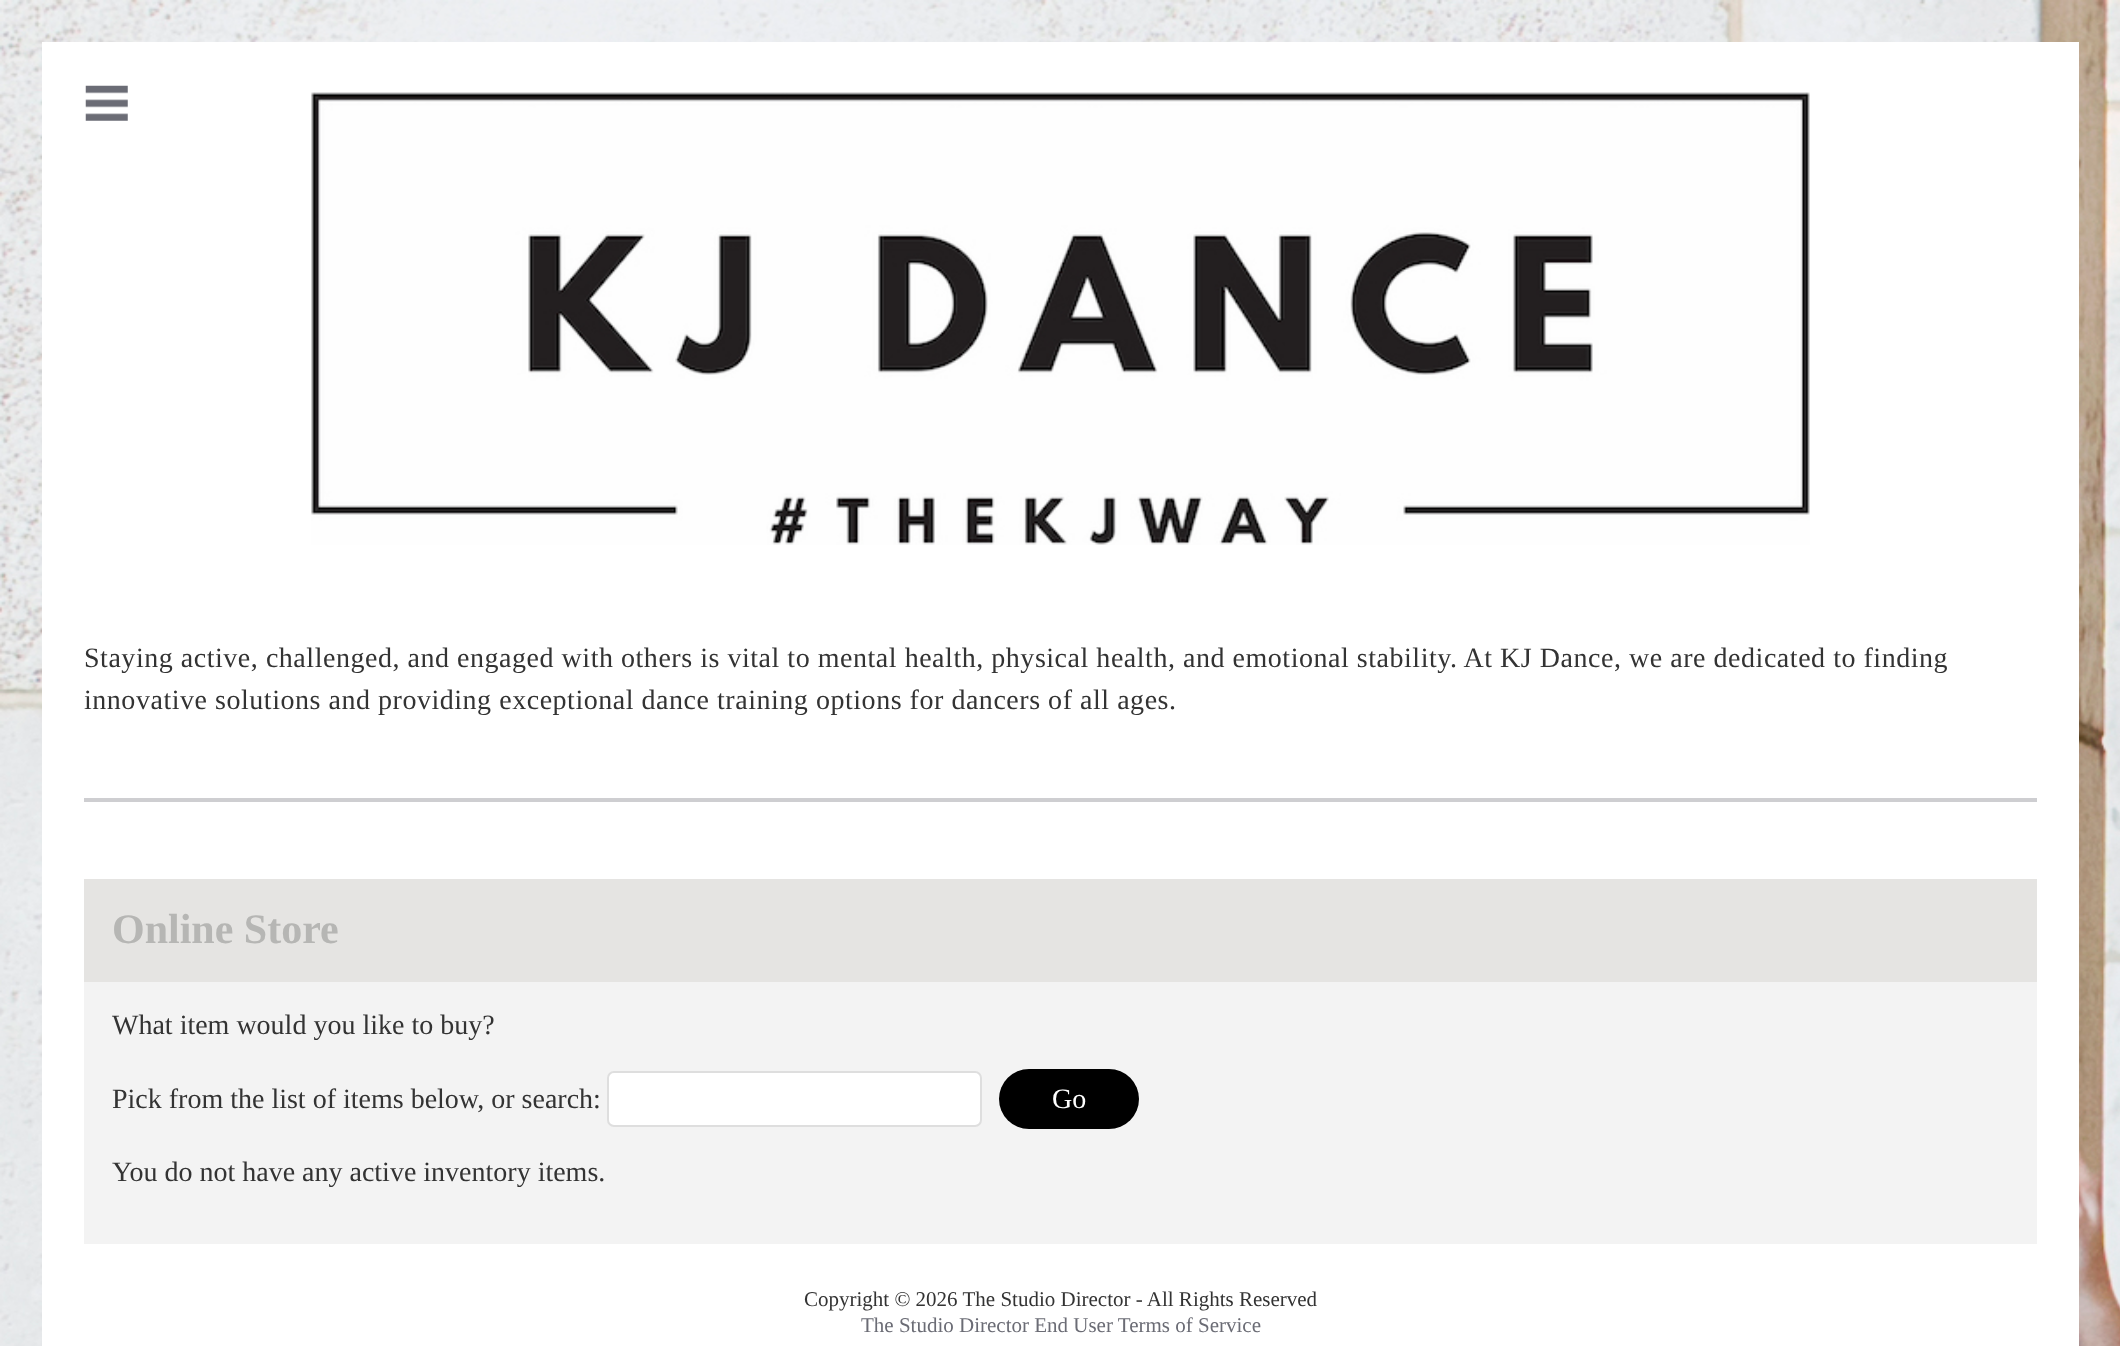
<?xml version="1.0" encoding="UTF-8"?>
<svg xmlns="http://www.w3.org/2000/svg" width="2120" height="1346">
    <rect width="100%" height="100%" fill="#FFFFFF"/>
    <image x="0" y="0" width="2120" height="1346" href="img_01.png"/>
    <rect x="42" y="42" width="2037" height="1304" fill="#FFFFFF"/>
    <image x="85" y="85" width="43" height="36" href="img_02.png"/>
    <image x="311" y="92" width="1499" height="453" href="img_03.png"/>
    <rect x="84" y="798" width="1953" height="4" fill="#CECED1"/>
    <text font-family="Liberation Serif" font-size="28" letter-spacing="0.53" fill="#333333">
        <tspan x="84" y="667">Staying active, challenged, and engaged with others is vital to mental health, physical health, and emotional stability. At KJ Dance, we are dedicated to finding</tspan>
        <tspan x="84" y="709">innovative solutions and providing exceptional dance training options for dancers of all ages.</tspan>
    </text>
    <rect x="84" y="879" width="1953" height="103" fill="#E5E4E2"/>
    <text x="112" y="943" font-family="Liberation Serif" font-size="42" font-weight="700" fill="#B6B6B4">Online Store</text>
    <rect x="84" y="982" width="1953" height="262" fill="#F3F3F3"/>
    <text x="112" y="1034" font-family="Liberation Serif" font-size="28" fill="#333333">What item would you like to buy?</text>
    <text x="112" y="1108" font-family="Liberation Serif" font-size="28" fill="#333333">Pick from the list of items below, or search:</text>
    <rect x="608" y="1072" width="373" height="54" rx="6" fill="#FFFFFF" stroke="#DEDEDE" stroke-width="2"/>
    <rect x="999" y="1069" width="140" height="60" rx="30" fill="#000000"/>
    <text x="1052" y="1108" font-family="Liberation Serif" font-size="28" fill="#FFFFFF">Go</text>
    <text x="112" y="1181" font-family="Liberation Serif" font-size="28" fill="#333333">You do not have any active inventory items.</text>
    <text x="804" y="1306" font-family="Liberation Serif" font-size="21" fill="#333333">Copyright © 2026 The Studio Director - All Rights Reserved</text>
    <text x="861" y="1332" font-family="Liberation Serif" font-size="21" fill="#6B6C75">The Studio Director End User Terms of Service</text>
</svg>
